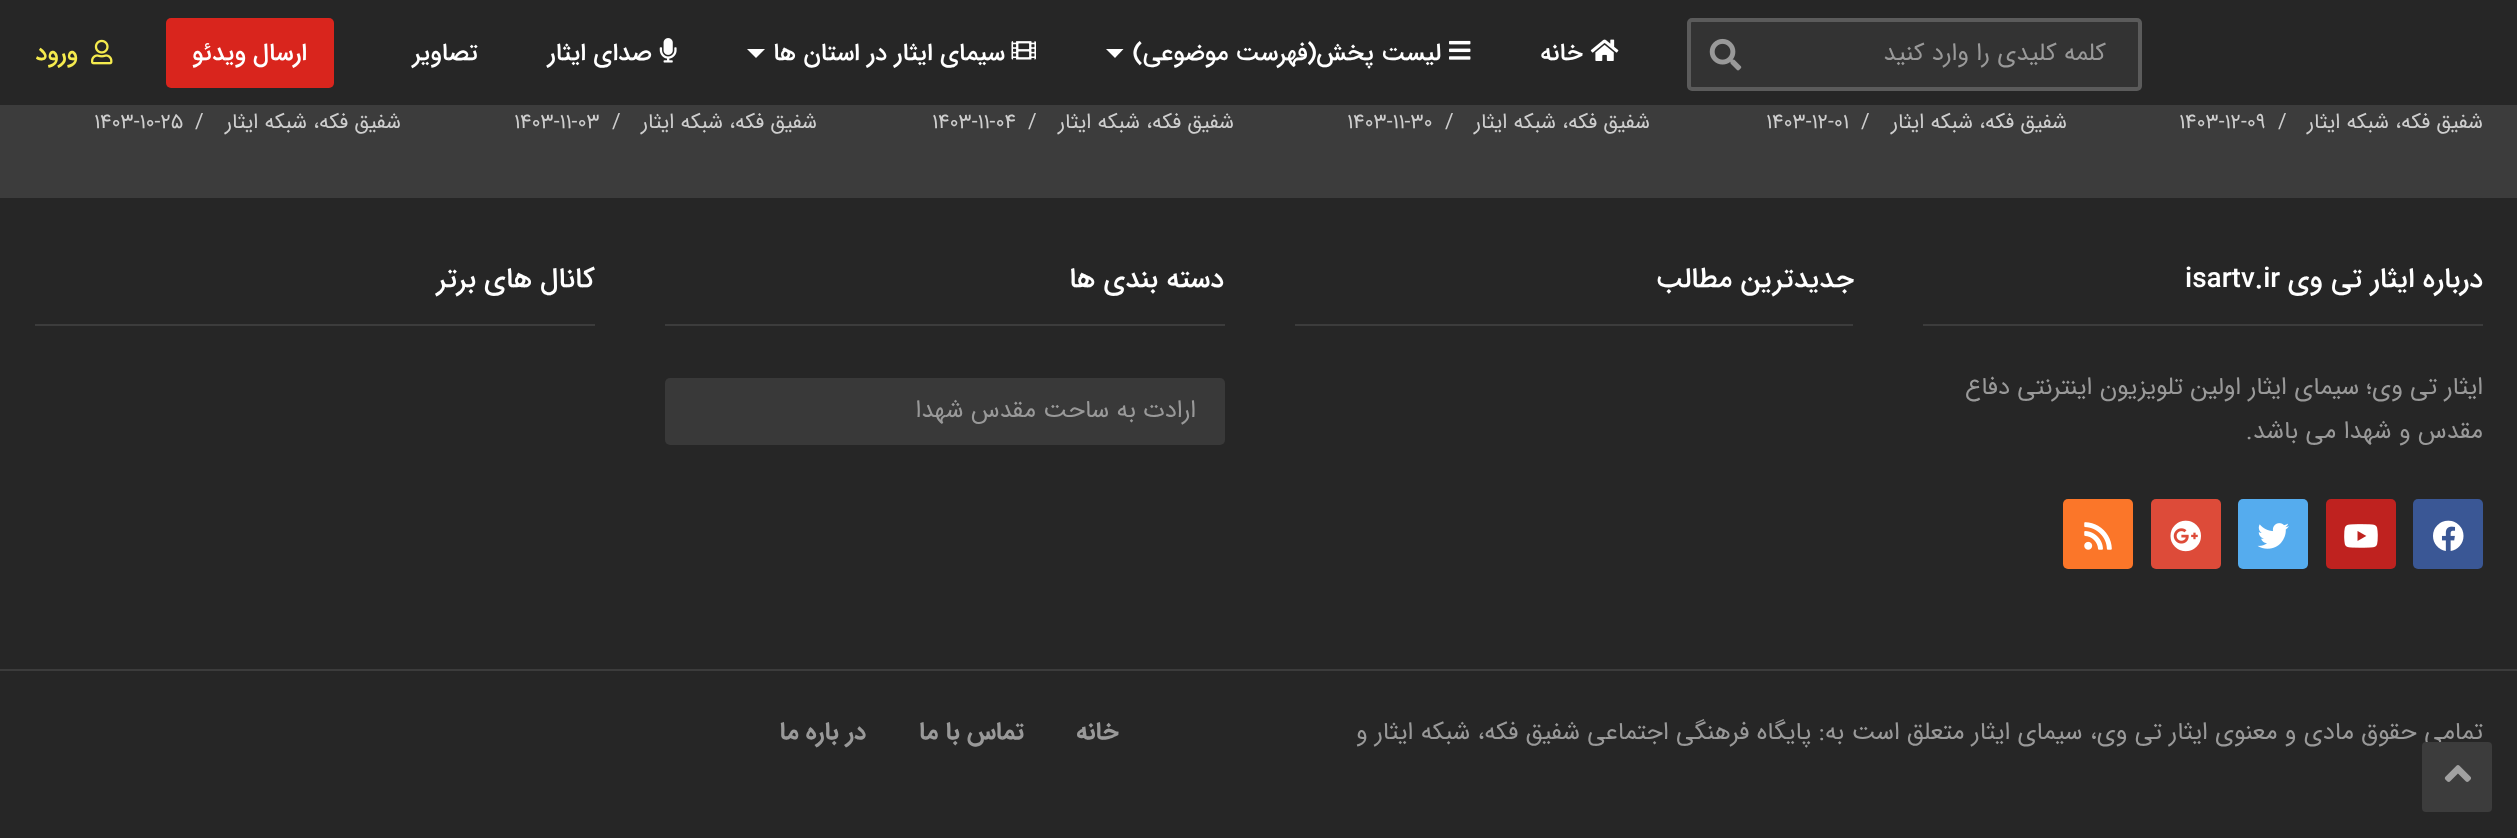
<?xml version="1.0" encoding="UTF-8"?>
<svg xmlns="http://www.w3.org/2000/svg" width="2517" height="838">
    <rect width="100%" height="100%" fill="#3C3C3C"/>
    <rect x="0" y="0" width="2517" height="105" fill="#262626"/>
    <rect x="1687" y="18" width="455" height="73" rx="5" fill="#333333"/>
    <rect x="1689" y="20" width="451" height="69" rx="3" fill="none" stroke="#FFFFFF" stroke-opacity="0.2" stroke-width="4"/>
    <text x="2106" y="60" font-family="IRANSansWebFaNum" font-size="24.5" direction="rtl" fill="#999999">کلمه کلیدی را وارد کنید</text>
    <image x="1709" y="38" width="33" height="33" href="img_01.png"/>
    <image x="1590" y="39" width="29" height="22" href="img_02.png"/>
    <text x="1583" y="60" font-family="IRANSansWebFaNum" font-size="24.5" font-weight="500" direction="rtl" fill="#FFFFFF">خانه</text>
    <image x="1449" y="40" width="22" height="20" href="img_03.png"/>
    <text x="1441" y="60" font-family="IRANSansWebFaNum" font-size="24.5" font-weight="500" direction="rtl" fill="#FFFFFF">لیست پخش(فهرست موضوعی)</text>
    <path d="M 1106 49 H 1123.5 L 1115 58 Z" fill="#FFFFFF"/>
    <image x="1011" y="41" width="25" height="19" href="img_04.png"/>
    <text x="1005" y="60" font-family="IRANSansWebFaNum" font-size="24.5" font-weight="500" direction="rtl" fill="#FFFFFF">سیمای ایثار در استان ها</text>
    <path d="M 747 49 H 765 L 756 58 Z" fill="#FFFFFF"/>
    <image x="659" y="38" width="18" height="25" href="img_05.png"/>
    <text x="652" y="60" font-family="IRANSansWebFaNum" font-size="24.5" font-weight="500" direction="rtl" fill="#FFFFFF">صدای ایثار</text>
    <text x="478" y="60" font-family="IRANSansWebFaNum" font-size="24.5" font-weight="500" direction="rtl" fill="#FFFFFF">تصاویر</text>
    <rect x="166" y="18" width="168" height="70" rx="5" fill="#D9251D"/>
    <text x="307" y="60" font-family="IRANSansWebFaNum" font-size="24.5" font-weight="500" direction="rtl" fill="#FFFFFF">ارسال ویدئو</text>
    <image x="91" y="39" width="22" height="26" href="img_06.png"/>
    <text x="78" y="60" font-family="IRANSansWebFaNum" font-size="24.5" font-weight="500" direction="rtl" fill="#F5EB4E">ورود</text>
    <text x="2483" y="128" font-family="IRANSansWebFaNum" font-size="21" direction="rtl" fill="#CECECE">شفیق فکه، شبکه ایثار</text>
    <text x="2278" y="128" font-family="IRANSansWebFaNum" font-size="21" fill="#CECECE">/</text>
    <text x="2179" y="128" font-family="IRANSansWebFaNum" font-size="21" fill="#CECECE">۱۴۰۳-۱۲-۰۹</text>
    <text x="2067" y="128" font-family="IRANSansWebFaNum" font-size="21" direction="rtl" fill="#CECECE">شفیق فکه، شبکه ایثار</text>
    <text x="1861" y="128" font-family="IRANSansWebFaNum" font-size="21" fill="#CECECE">/</text>
    <text x="1766" y="128" font-family="IRANSansWebFaNum" font-size="21" fill="#CECECE">۱۴۰۳-۱۲-۰۱</text>
    <text x="1650" y="128" font-family="IRANSansWebFaNum" font-size="21" direction="rtl" fill="#CECECE">شفیق فکه، شبکه ایثار</text>
    <text x="1445" y="128" font-family="IRANSansWebFaNum" font-size="21" fill="#CECECE">/</text>
    <text x="1347" y="128" font-family="IRANSansWebFaNum" font-size="21" fill="#CECECE">۱۴۰۳-۱۱-۳۰</text>
    <text x="1234" y="128" font-family="IRANSansWebFaNum" font-size="21" direction="rtl" fill="#CECECE">شفیق فکه، شبکه ایثار</text>
    <text x="1028" y="128" font-family="IRANSansWebFaNum" font-size="21" fill="#CECECE">/</text>
    <text x="932" y="128" font-family="IRANSansWebFaNum" font-size="21" fill="#CECECE">۱۴۰۳-۱۱-۰۴</text>
    <text x="817" y="128" font-family="IRANSansWebFaNum" font-size="21" direction="rtl" fill="#CECECE">شفیق فکه، شبکه ایثار</text>
    <text x="612" y="128" font-family="IRANSansWebFaNum" font-size="21" fill="#CECECE">/</text>
    <text x="514" y="128" font-family="IRANSansWebFaNum" font-size="21" fill="#CECECE">۱۴۰۳-۱۱-۰۳</text>
    <text x="401" y="128" font-family="IRANSansWebFaNum" font-size="21" direction="rtl" fill="#CECECE">شفیق فکه، شبکه ایثار</text>
    <text x="195" y="128" font-family="IRANSansWebFaNum" font-size="21" fill="#CECECE">/</text>
    <text x="94" y="128" font-family="IRANSansWebFaNum" font-size="21" fill="#CECECE">۱۴۰۳-۱۰-۲۵</text>
    <rect x="0" y="198" width="2517" height="640" fill="#262626"/>
    <rect x="1923" y="324" width="560" height="2" fill="#3C3C3C"/>
    <text x="2483" y="287" font-family="IRANSansWebFaNum" font-size="28" font-weight="500" direction="rtl" fill="#FFFFFF">درباره ایثار تی وی</text>
    <text x="2185" y="287" font-family="IRANSansWebFaNum" font-size="28" font-weight="500" fill="#FFFFFF">isartv.ir</text>
    <text font-family="IRANSansWebFaNum" font-size="24.5" direction="rtl" fill="#999999">
        <tspan x="2483" y="394">ایثار تی وی؛ سیمای ایثار اولین تلویزیون اینترنتی دفاع</tspan>
        <tspan x="2483" y="438">مقدس و شهدا می باشد.</tspan>
    </text>
    <rect x="2413" y="499" width="70" height="70" rx="5" fill="#3A5795"/>
    <image x="2433" y="520" width="31" height="31" href="img_07.png"/>
    <rect x="2326" y="499" width="70" height="70" rx="5" fill="#BF221F"/>
    <image x="2344" y="524" width="34" height="24" href="img_08.png"/>
    <rect x="2238" y="499" width="70" height="70" rx="5" fill="#55ACEE"/>
    <image x="2257" y="523" width="32" height="26" href="img_09.png"/>
    <rect x="2151" y="499" width="70" height="70" rx="5" fill="#DD4B39"/>
    <image x="2170" y="520" width="31" height="32" href="img_10.png"/>
    <rect x="2063" y="499" width="70" height="70" rx="5" fill="#FB7629"/>
    <image x="2084" y="522" width="28" height="28" href="img_11.png"/>
    <rect x="1295" y="324" width="558" height="2" fill="#3C3C3C"/>
    <text x="1854" y="287" font-family="IRANSansWebFaNum" font-size="28" font-weight="500" direction="rtl" fill="#FFFFFF">جدیدترین مطالب</text>
    <rect x="665" y="324" width="560" height="2" fill="#3C3C3C"/>
    <text x="1224" y="287" font-family="IRANSansWebFaNum" font-size="28" font-weight="500" direction="rtl" fill="#FFFFFF">دسته بندی ها</text>
    <rect x="665" y="378" width="560" height="67" rx="5" fill="#393939"/>
    <text x="1196" y="417" font-family="IRANSansWebFaNum" font-size="24.5" direction="rtl" fill="#999999">ارادت به ساحت مقدس شهدا</text>
    <rect x="35" y="324" width="560" height="2" fill="#3C3C3C"/>
    <text x="595" y="287" font-family="IRANSansWebFaNum" font-size="28" font-weight="500" direction="rtl" fill="#FFFFFF">کانال های برتر</text>
    <rect x="0" y="669" width="2517" height="2" fill="#3C3C3C"/>
    <text x="2483" y="739" font-family="IRANSansWebFaNum" font-size="24.5" direction="rtl" fill="#999999">تمامی حقوق مادی و معنوی ایثار تی وی، سیمای ایثار متعلق است به: پایگاه فرهنگی اجتماعی شفیق فکه، شبکه ایثار و</text>
    <text x="1119" y="739" font-family="IRANSansWebFaNum" font-size="24.5" font-weight="700" direction="rtl" fill="#999999">خانه</text>
    <text x="1024" y="739" font-family="IRANSansWebFaNum" font-size="24.5" font-weight="700" direction="rtl" fill="#999999">تماس با ما</text>
    <text x="866" y="739" font-family="IRANSansWebFaNum" font-size="24.5" font-weight="700" direction="rtl" fill="#999999">در باره ما</text>
    <rect x="2422" y="742" width="70" height="70" rx="4" fill="#3C3C3C"/>
    <image x="2444" y="765" width="27" height="17" href="img_12.png"/>
</svg>
